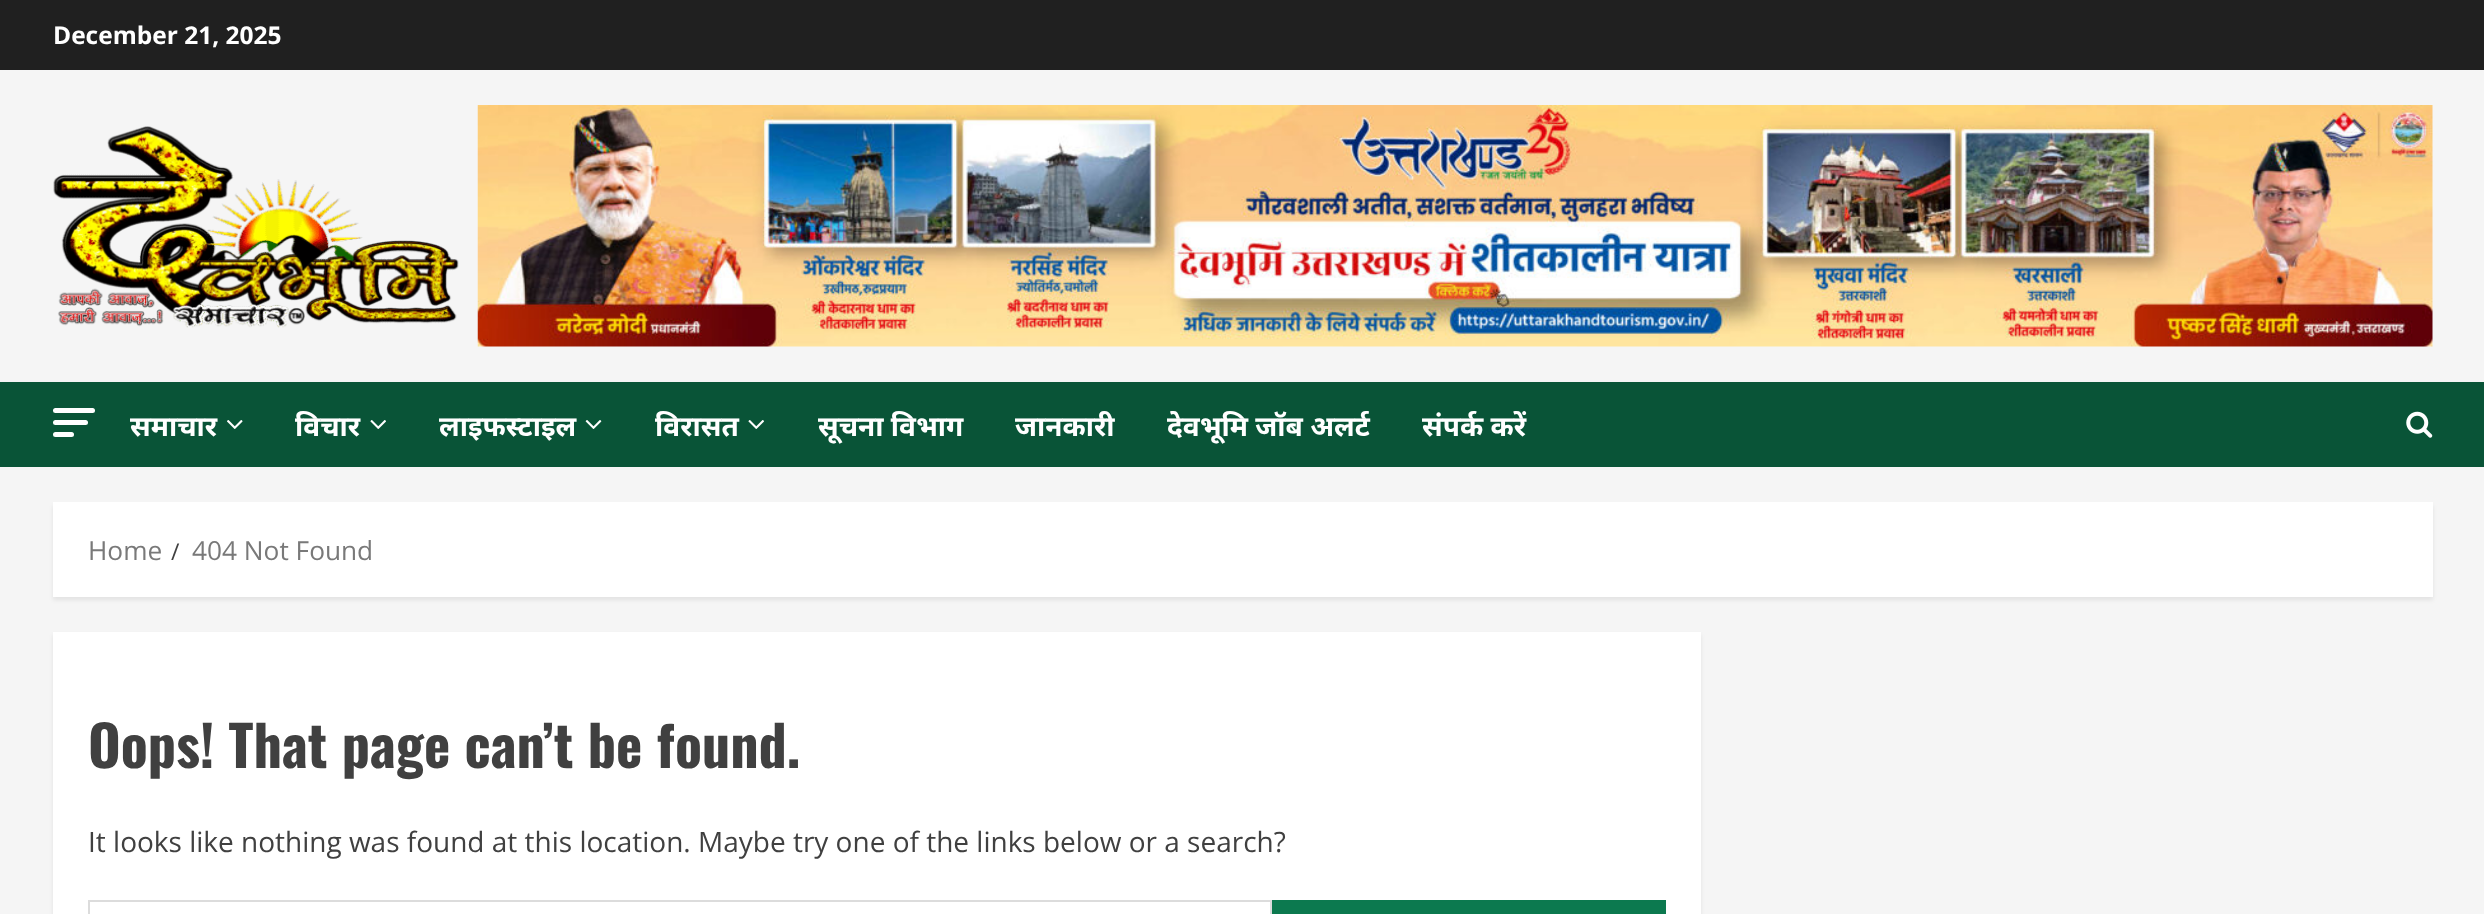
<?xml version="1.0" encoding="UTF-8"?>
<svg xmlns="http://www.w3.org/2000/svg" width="2484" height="914">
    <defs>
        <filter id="blur1" x="-50%" y="-200%" width="200%" height="500%"><feGaussianBlur stdDeviation="2"/></filter>
    </defs>
    <rect width="100%" height="100%" fill="#F5F5F5"/>
    <rect x="0" y="0" width="2484" height="70" fill="#202020"/>
    <text x="53" y="44" font-family="Open Sans" font-size="24.5" font-weight="700" fill="#FFFFFF">December 21, 2025</text>
    <image x="53" y="126" width="406" height="202" href="img_01.png"/>
    <image x="477" y="105" width="1956" height="242" href="img_02.png"/>
    <rect x="0" y="382" width="2484" height="85" fill="#095437"/>
    <rect x="53" y="408" width="42" height="5" rx="2.5" fill="#FFFFFF"/>
    <rect x="53" y="420" width="35" height="5" rx="2.5" fill="#FFFFFF"/>
    <rect x="53" y="432" width="21" height="5" rx="2.5" fill="#FFFFFF"/>
    <text x="130" y="436" font-family="Noto Sans" font-size="28" font-weight="700" fill="#FFFFFF">समाचार</text>
    <image x="227" y="420" width="16" height="9" href="img_03.png"/>
    <text x="295" y="436" font-family="Noto Sans" font-size="28" font-weight="700" fill="#FFFFFF">विचार</text>
    <image x="370" y="420" width="16" height="9" href="img_04.png"/>
    <text x="439" y="436" font-family="Noto Sans" font-size="28" font-weight="700" fill="#FFFFFF">लाइफस्टाइल</text>
    <image x="585" y="420" width="17" height="9" href="img_05.png"/>
    <text x="655" y="436" font-family="Noto Sans" font-size="28" font-weight="700" fill="#FFFFFF">विरासत</text>
    <image x="748" y="420" width="16" height="9" href="img_04.png"/>
    <text x="818" y="436" font-family="Noto Sans" font-size="28" font-weight="700" fill="#FFFFFF">सूचना विभाग</text>
    <text x="1015" y="436" font-family="Noto Sans" font-size="28" font-weight="700" fill="#FFFFFF">जानकारी</text>
    <text x="1167" y="436" font-family="Noto Sans" font-size="28" font-weight="700" fill="#FFFFFF">देवभूमि जॉब अलर्ट</text>
    <text x="1422" y="436" font-family="Noto Sans" font-size="28" font-weight="700" fill="#FFFFFF">संपर्क करें</text>
    <image x="2406" y="411" width="27" height="27" href="img_06.png"/>
    <rect x="53" y="506" width="2380" height="94" fill="#000000" fill-opacity="0.08" filter="url(#blur1)"/>
    <rect x="53" y="502" width="2380" height="95" fill="#FFFFFF"/>
    <text x="88" y="560" font-family="Open Sans" font-size="26.25" fill="#797979">Home</text>
    <text x="171" y="560" font-family="Open Sans" font-size="23" fill="#404040">/</text>
    <text x="192" y="560" font-family="Open Sans" font-size="26.25" fill="#797979">404 Not Found</text>
    <rect x="53" y="635" width="1648" height="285" fill="#000000" fill-opacity="0.08" filter="url(#blur1)"/>
    <rect x="53" y="632" width="1648" height="282" fill="#FFFFFF"/>
    <text x="88" y="768" font-family="Oswald" font-size="56" font-weight="700" fill="#404040">Oops! That page can’t be found.</text>
    <text x="88" y="852" font-family="Open Sans" font-size="28" fill="#404040">It looks like nothing was found at this location. Maybe try one of the links below or a search?</text>
    <rect x="89" y="901" width="1182" height="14" fill="none" stroke="#DCDCDC" stroke-width="2"/>
    <rect x="1272" y="900" width="394" height="14" fill="#0C794F"/>
</svg>
